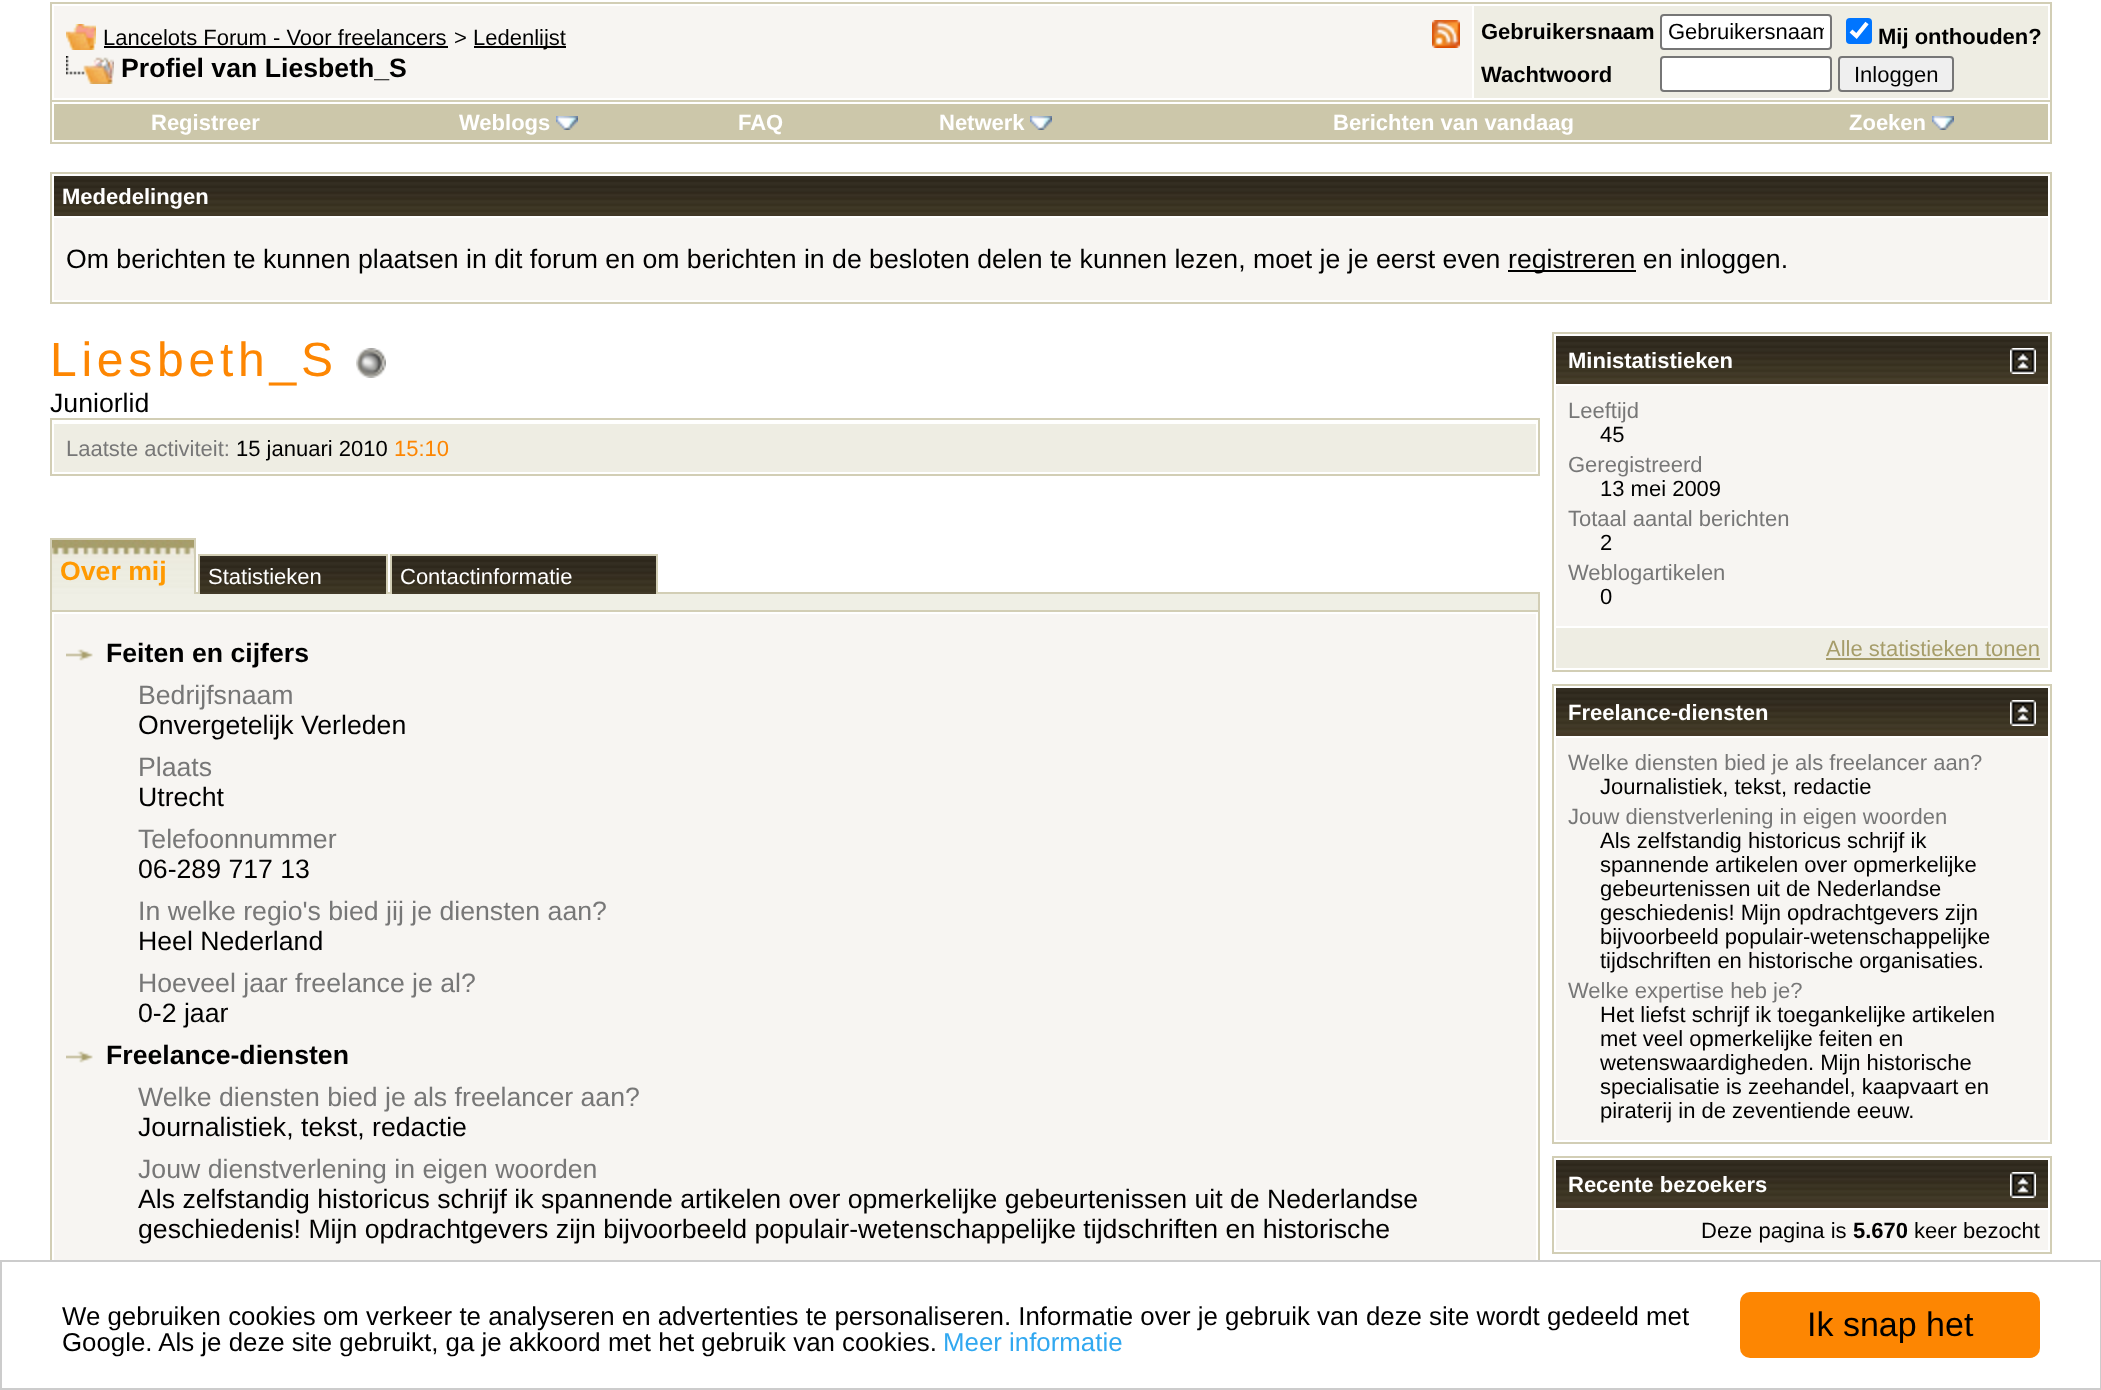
<?xml version="1.0" encoding="UTF-8"?>
<svg xmlns="http://www.w3.org/2000/svg" width="2101" height="1390">
    <defs>
        <clipPath id="clip1"><rect x="1668" y="20" width="156" height="24"/></clipPath>
        <clipPath id="clip2"><rect x="50" y="528" width="1490" height="66"/></clipPath>
    </defs>
    <rect width="100%" height="100%" fill="#FFFFFF"/>
    <rect x="51" y="3" width="2000" height="98" fill="none" stroke="#D2CEB5" stroke-width="2"/>
    <rect x="54" y="6" width="1418" height="92" fill="#F7F5F2"/>
    <image x="66" y="24" width="30" height="26" href="img_01.png"/>
    <text x="103" y="45" font-family="Liberation Sans" font-size="22" fill="#000000">Lancelots Forum - Voor freelancers</text>
    <rect x="104" y="46" width="344" height="2" fill="#000000"/>
    <text x="454" y="45" font-family="Liberation Sans" font-size="22" fill="#000000">&gt;</text>
    <rect x="474" y="46" width="92" height="2" fill="#000000"/>
    <text x="473" y="45" font-family="Liberation Sans" font-size="22" fill="#000000">Ledenlijst</text>
    <image x="66" y="56" width="48" height="28" href="img_02.png"/>
    <text x="121" y="77" font-family="Liberation Sans" font-size="26.67" font-weight="700" fill="#000000">Profiel van Liesbeth_S</text>
    <image x="1432" y="20" width="28" height="28" href="img_03.png"/>
    <rect x="1474" y="6" width="574" height="92" fill="#EEEDE3"/>
    <text x="1481" y="39" font-family="Liberation Sans" font-size="22" font-weight="700" fill="#000000">Gebruikersnaam</text>
    <rect x="1661" y="15" width="170" height="34" rx="3" fill="#FFFFFF" stroke="#767676" stroke-width="2"/>
    <g clip-path="url(#clip1)">
        <text x="1668" y="39" font-family="Liberation Sans" font-size="22" fill="#000000">Gebruikersnaam</text>
    </g>
    <rect x="1846" y="18" width="26" height="26" rx="4" fill="#0075FF"/>
    <path d="M 1851 31 L 1856.5 36 L 1867 23" fill="none" stroke="#FFFFFF" stroke-width="4.2"/>
    <text x="1878" y="44" font-family="Liberation Sans" font-size="22" font-weight="700" fill="#000000">Mij onthouden?</text>
    <text x="1481" y="82" font-family="Liberation Sans" font-size="22" font-weight="700" fill="#000000">Wachtwoord</text>
    <rect x="1661" y="57" width="170" height="34" rx="3" fill="#FFFFFF" stroke="#767676" stroke-width="2"/>
    <rect x="1839" y="57" width="114" height="34" rx="3" fill="#EFEFEF" stroke="#767676" stroke-width="2"/>
    <text x="1854" y="82" font-family="Liberation Sans" font-size="22" fill="#000000">Inloggen</text>
    <rect x="2050" y="102" width="2" height="42" fill="#D2CEB5"/>
    <rect x="50" y="142" width="2002" height="2" fill="#D2CEB5"/>
    <rect x="50" y="102" width="2" height="42" fill="#D2CEB5"/>
    <rect x="54" y="104" width="1994" height="36" fill="#CCC7AA"/>
    <text x="151" y="130" font-family="Liberation Sans" font-size="22" font-weight="700" fill="#FFFFFF">Registreer</text>
    <text x="459" y="130" font-family="Liberation Sans" font-size="22" font-weight="700" fill="#FFFFFF">Weblogs</text>
    <image x="556" y="116" width="22" height="14" href="img_04.png"/>
    <text x="738" y="130" font-family="Liberation Sans" font-size="22" font-weight="700" fill="#FFFFFF">FAQ</text>
    <text x="939" y="130" font-family="Liberation Sans" font-size="22" font-weight="700" fill="#FFFFFF">Netwerk</text>
    <image x="1030" y="116" width="22" height="14" href="img_04.png"/>
    <text x="1333" y="130" font-family="Liberation Sans" font-size="22" font-weight="700" fill="#FFFFFF">Berichten van vandaag</text>
    <text x="1849" y="130" font-family="Liberation Sans" font-size="22" font-weight="700" fill="#FFFFFF">Zoeken</text>
    <image x="1932" y="116" width="22" height="14" href="img_04.png"/>
    <rect x="51" y="173" width="2000" height="130" fill="none" stroke="#D2CEB5" stroke-width="2"/>
    <image x="54" y="176" width="1994" height="40" href="img_05.png"/>
    <text x="62" y="204" font-family="Liberation Sans" font-size="22" font-weight="700" fill="#FFFFFF">Mededelingen</text>
    <rect x="54" y="218" width="1994" height="82" fill="#F7F5F2"/>
    <text x="66" y="268" font-family="Liberation Sans" font-size="26.67" fill="#000000">Om berichten te kunnen plaatsen in dit forum en om berichten in de besloten delen te kunnen lezen, moet je je eerst even</text>
    <rect x="1508" y="270" width="128" height="2" fill="#000000"/>
    <text x="1508" y="268" font-family="Liberation Sans" font-size="26.67" fill="#000000">registreren en inloggen.</text>
    <text x="50" y="376" font-family="Liberation Sans" font-size="48" letter-spacing="4.75" fill="#FD8602">Liesbeth_S</text>
    <image x="356" y="348" width="30" height="30" href="img_06.png"/>
    <text x="50" y="412" font-family="Liberation Sans" font-size="26.67" fill="#000000">Juniorlid</text>
    <rect x="51" y="419" width="1488" height="56" fill="none" stroke="#D2CEB5" stroke-width="2"/>
    <rect x="54" y="424" width="1482" height="48" fill="#EEEDE3"/>
    <text x="66" y="456" font-family="Liberation Sans" font-size="22" fill="#777777">Laatste activiteit:</text>
    <text x="236" y="456" font-family="Liberation Sans" font-size="22" fill="#000000">15 januari 2010</text>
    <text x="394" y="456" font-family="Liberation Sans" font-size="22" fill="#FD8602">15:10</text>
    <image x="52" y="540" width="142" height="54" href="img_07.png"/>
    <rect x="50" y="538" width="146" height="2" fill="#D2CEB5"/>
    <rect x="194" y="538" width="2" height="56" fill="#D2CEB5"/>
    <rect x="50" y="592" width="2" height="18" fill="#D2CEB5"/>
    <rect x="50" y="538" width="2" height="56" fill="#D2CEB5"/>
    <text x="60" y="580" font-family="Liberation Sans" font-size="26.67" font-weight="700" fill="#FF9900">Over mij</text>
    <rect x="196" y="592" width="1344" height="2" fill="#D2CEB5"/>
    <image x="200" y="556" width="186" height="38" href="img_08.png"/>
    <rect x="52" y="594" width="1486" height="16" fill="#EFEFE5"/>
    <g clip-path="url(#clip2)">
        <rect x="199" y="555" width="188" height="42" fill="none" stroke="#D2CEB5" stroke-width="2"/>
    </g>
    <text x="208" y="584" font-family="Liberation Sans" font-size="22" fill="#FFFFFF">Statistieken</text>
    <image x="392" y="556" width="264" height="38" href="img_09.png"/>
    <g clip-path="url(#clip2)">
        <rect x="391" y="555" width="266" height="42" fill="none" stroke="#D2CEB5" stroke-width="2"/>
    </g>
    <text x="400" y="584" font-family="Liberation Sans" font-size="22" fill="#FFFFFF">Contactinformatie</text>
    <rect x="1538" y="592" width="2" height="18" fill="#D2CEB5"/>
    <rect x="51" y="611" width="1488" height="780" fill="none" stroke="#D2CEB5" stroke-width="2"/>
    <rect x="54" y="614" width="1482" height="646" fill="#F7F5F2"/>
    <image x="66" y="649" width="27" height="12" href="img_10.png"/>
    <text x="106" y="662" font-family="Liberation Sans" font-size="26.67" font-weight="700" fill="#000000">Feiten en cijfers</text>
    <text x="138" y="704" font-family="Liberation Sans" font-size="26.67" fill="#777777">Bedrijfsnaam</text>
    <text x="138" y="734" font-family="Liberation Sans" font-size="26.67" fill="#000000">Onvergetelijk Verleden</text>
    <text x="138" y="776" font-family="Liberation Sans" font-size="26.67" fill="#777777">Plaats</text>
    <text x="138" y="806" font-family="Liberation Sans" font-size="26.67" fill="#000000">Utrecht</text>
    <text x="138" y="848" font-family="Liberation Sans" font-size="26.67" fill="#777777">Telefoonnummer</text>
    <text x="138" y="878" font-family="Liberation Sans" font-size="26.67" fill="#000000">06-289 717 13</text>
    <text x="138" y="920" font-family="Liberation Sans" font-size="26.67" fill="#777777">In welke regio's bied jij je diensten aan?</text>
    <text x="138" y="950" font-family="Liberation Sans" font-size="26.67" fill="#000000">Heel Nederland</text>
    <text x="138" y="992" font-family="Liberation Sans" font-size="26.67" fill="#777777">Hoeveel jaar freelance je al?</text>
    <text x="138" y="1022" font-family="Liberation Sans" font-size="26.67" fill="#000000">0-2 jaar</text>
    <image x="66" y="1051" width="27" height="12" href="img_10.png"/>
    <text x="106" y="1064" font-family="Liberation Sans" font-size="26.67" font-weight="700" fill="#000000">Freelance-diensten</text>
    <text x="138" y="1106" font-family="Liberation Sans" font-size="26.67" fill="#777777">Welke diensten bied je als freelancer aan?</text>
    <text x="138" y="1136" font-family="Liberation Sans" font-size="26.67" fill="#000000">Journalistiek, tekst, redactie</text>
    <text x="138" y="1178" font-family="Liberation Sans" font-size="26.67" fill="#777777">Jouw dienstverlening in eigen woorden</text>
    <text font-family="Liberation Sans" font-size="26.67" fill="#000000">
        <tspan x="138" y="1208">Als zelfstandig historicus schrijf ik spannende artikelen over opmerkelijke gebeurtenissen uit de Nederlandse</tspan>
        <tspan x="138" y="1238">geschiedenis! Mijn opdrachtgevers zijn bijvoorbeeld populair-wetenschappelijke tijdschriften en historische</tspan>
    </text>
    <rect x="1553" y="333" width="498" height="338" fill="none" stroke="#D2CEB5" stroke-width="2"/>
    <image x="1556" y="336" width="492" height="48" href="img_11.png"/>
    <text x="1568" y="368" font-family="Liberation Sans" font-size="22" font-weight="700" fill="#FFFFFF">Ministatistieken</text>
    <image x="2010" y="348" width="26" height="26" href="img_12.png"/>
    <rect x="1556" y="386" width="492" height="240" fill="#F7F5F2"/>
    <text x="1568" y="418" font-family="Liberation Sans" font-size="22" fill="#777777">Leeftijd</text>
    <text x="1600" y="442" font-family="Liberation Sans" font-size="22" fill="#000000">45</text>
    <text x="1568" y="472" font-family="Liberation Sans" font-size="22" fill="#777777">Geregistreerd</text>
    <text x="1600" y="496" font-family="Liberation Sans" font-size="22" fill="#000000">13 mei 2009</text>
    <text x="1568" y="526" font-family="Liberation Sans" font-size="22" fill="#777777">Totaal aantal berichten</text>
    <text x="1600" y="550" font-family="Liberation Sans" font-size="22" fill="#000000">2</text>
    <text x="1568" y="580" font-family="Liberation Sans" font-size="22" fill="#777777">Weblogartikelen</text>
    <text x="1600" y="604" font-family="Liberation Sans" font-size="22" fill="#000000">0</text>
    <rect x="1556" y="628" width="492" height="40" fill="#EEEDE3"/>
    <text x="1826" y="656" font-family="Liberation Sans" font-size="22" fill="#A69D6A">Alle statistieken tonen</text>
    <rect x="1826" y="658" width="214" height="2" fill="#A69D6A"/>
    <rect x="1553" y="685" width="498" height="458" fill="none" stroke="#D2CEB5" stroke-width="2"/>
    <image x="1556" y="688" width="492" height="48" href="img_11.png"/>
    <text x="1568" y="720" font-family="Liberation Sans" font-size="22" font-weight="700" fill="#FFFFFF">Freelance-diensten</text>
    <image x="2010" y="700" width="26" height="26" href="img_12.png"/>
    <rect x="1556" y="738" width="492" height="402" fill="#F7F5F2"/>
    <text x="1568" y="770" font-family="Liberation Sans" font-size="22" fill="#777777">Welke diensten bied je als freelancer aan?</text>
    <text x="1600" y="794" font-family="Liberation Sans" font-size="22" fill="#000000">Journalistiek, tekst, redactie</text>
    <text x="1568" y="824" font-family="Liberation Sans" font-size="22" fill="#777777">Jouw dienstverlening in eigen woorden</text>
    <text font-family="Liberation Sans" font-size="22" fill="#000000">
        <tspan x="1600" y="848">Als zelfstandig historicus schrijf ik</tspan>
        <tspan x="1600" y="872">spannende artikelen over opmerkelijke</tspan>
        <tspan x="1600" y="896">gebeurtenissen uit de Nederlandse</tspan>
        <tspan x="1600" y="920">geschiedenis! Mijn opdrachtgevers zijn</tspan>
        <tspan x="1600" y="944">bijvoorbeeld populair-wetenschappelijke</tspan>
        <tspan x="1600" y="968">tijdschriften en historische organisaties.</tspan>
    </text>
    <text x="1568" y="998" font-family="Liberation Sans" font-size="22" fill="#777777">Welke expertise heb je?</text>
    <text font-family="Liberation Sans" font-size="22" fill="#000000">
        <tspan x="1600" y="1022">Het liefst schrijf ik toegankelijke artikelen</tspan>
        <tspan x="1600" y="1046">met veel opmerkelijke feiten en</tspan>
        <tspan x="1600" y="1070">wetenswaardigheden. Mijn historische</tspan>
        <tspan x="1600" y="1094">specialisatie is zeehandel, kaapvaart en</tspan>
        <tspan x="1600" y="1118">piraterij in de zeventiende eeuw.</tspan>
    </text>
    <rect x="1553" y="1157" width="498" height="96" fill="none" stroke="#D2CEB5" stroke-width="2"/>
    <image x="1556" y="1160" width="492" height="48" href="img_11.png"/>
    <text x="1568" y="1192" font-family="Liberation Sans" font-size="22" font-weight="700" fill="#FFFFFF">Recente bezoekers</text>
    <image x="2010" y="1172" width="26" height="26" href="img_12.png"/>
    <rect x="1556" y="1210" width="492" height="40" fill="#F7F5F2"/>
    <text x="1701" y="1238" font-family="Liberation Sans" font-size="22" fill="#000000">Deze pagina is</text>
    <text x="1853" y="1238" font-family="Liberation Sans" font-size="22" font-weight="700" fill="#000000">5.670</text>
    <text x="1914" y="1238" font-family="Liberation Sans" font-size="22" fill="#000000">keer bezocht</text>
    <rect x="50" y="1262" width="1490" height="126" fill="#FFFFFF"/>
    <rect x="1" y="1261" width="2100" height="128" fill="none" stroke="#CCCCCC" stroke-width="2"/>
    <text font-family="Liberation Sans" font-size="25.85" fill="#000000">
        <tspan x="62" y="1325">We gebruiken cookies om verkeer te analyseren en advertenties te personaliseren. Informatie over je gebruik van deze site wordt gedeeld met</tspan>
        <tspan x="62" y="1351">Google. Als je deze site gebruikt, ga je akkoord met het gebruik van cookies.</tspan>
    </text>
    <text x="943" y="1351" font-family="Liberation Sans" font-size="25.85" fill="#31A8F0">Meer informatie</text>
    <rect x="1740" y="1292" width="300" height="66" rx="10" fill="#FD8602"/>
    <text x="1807" y="1336" font-family="Liberation Sans" font-size="34" fill="#000000">Ik snap het</text>
</svg>
